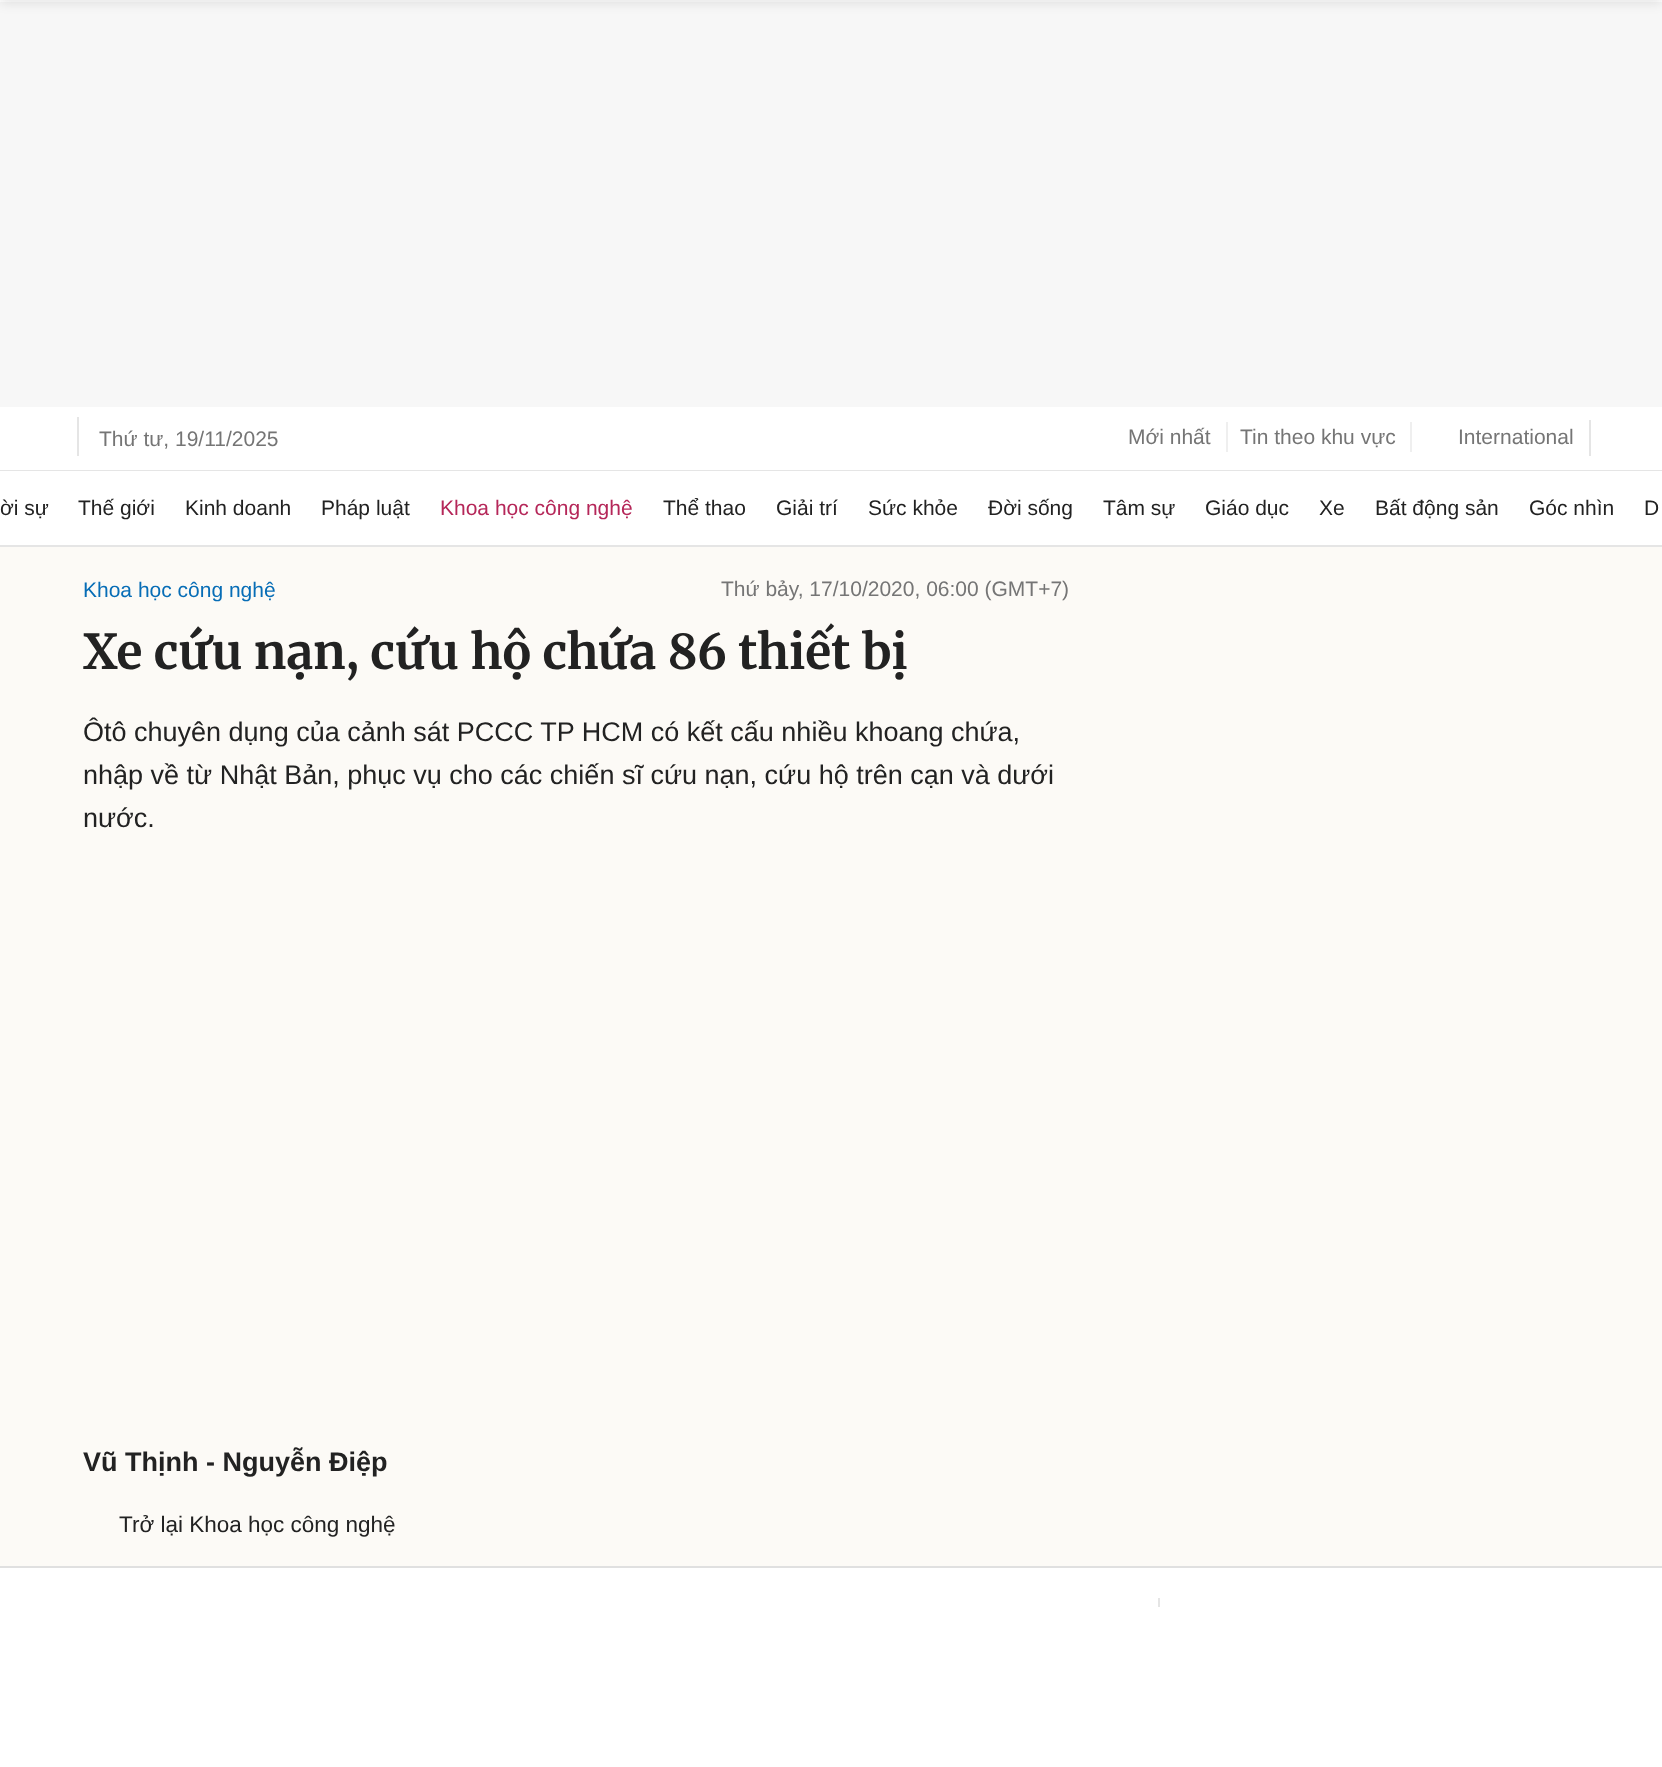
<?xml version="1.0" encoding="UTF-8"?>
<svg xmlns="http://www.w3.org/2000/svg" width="1662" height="1767">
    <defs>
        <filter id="blur1" x="-50%" y="-200%" width="200%" height="500%"><feGaussianBlur stdDeviation="6"/></filter>
    </defs>
    <rect width="100%" height="100%" fill="#FFFFFF"/>
    <rect x="0" y="2" width="1662" height="405" fill="#F7F7F7"/>
    <rect x="0" y="470" width="1662" height="1" fill="#E5E5E5"/>
    <rect x="77" y="417" width="2" height="39" fill="#E5E5E5"/>
    <text x="99" y="446" font-family="Liberation Sans" font-size="21" fill="#757575">Thứ tư, 19/11/2025</text>
    <text x="1128" y="444" font-family="Liberation Sans" font-size="21" fill="#757575">Mới nhất</text>
    <rect x="1226" y="422" width="2" height="30" fill="#EFEFEF"/>
    <text x="1240" y="444" font-family="Liberation Sans" font-size="21" fill="#757575">Tin theo khu vực</text>
    <rect x="1410" y="422" width="2" height="30" fill="#EFEFEF"/>
    <text x="1458" y="444" font-family="Liberation Sans" font-size="21" fill="#757575">International</text>
    <rect x="1589" y="420" width="2" height="36" fill="#E5E5E5"/>
    <rect x="0" y="545" width="1662" height="2" fill="#E5E5E5"/>
    <text x="0" y="515" font-family="Liberation Sans" font-size="21" fill="#222222">ời sự</text>
    <text x="78" y="515" font-family="Liberation Sans" font-size="21" fill="#222222">Thế giới</text>
    <text x="185" y="515" font-family="Liberation Sans" font-size="21" fill="#222222">Kinh doanh</text>
    <text x="321" y="515" font-family="Liberation Sans" font-size="21" fill="#222222">Pháp luật</text>
    <text x="440" y="515" font-family="Liberation Sans" font-size="21" fill="#B52759">Khoa học công nghệ</text>
    <text x="663" y="515" font-family="Liberation Sans" font-size="21" fill="#222222">Thể thao</text>
    <text x="776" y="515" font-family="Liberation Sans" font-size="21" fill="#222222">Giải trí</text>
    <text x="868" y="515" font-family="Liberation Sans" font-size="21" fill="#222222">Sức khỏe</text>
    <text x="988" y="515" font-family="Liberation Sans" font-size="21" fill="#222222">Đời sống</text>
    <text x="1103" y="515" font-family="Liberation Sans" font-size="21" fill="#222222">Tâm sự</text>
    <text x="1205" y="515" font-family="Liberation Sans" font-size="21" fill="#222222">Giáo dục</text>
    <text x="1319" y="515" font-family="Liberation Sans" font-size="21" fill="#222222">Xe</text>
    <text x="1375" y="515" font-family="Liberation Sans" font-size="21" fill="#222222">Bất động sản</text>
    <text x="1529" y="515" font-family="Liberation Sans" font-size="21" fill="#222222">Góc nhìn</text>
    <text x="1644" y="515" font-family="Liberation Sans" font-size="21" fill="#222222">D</text>
    <rect x="0" y="547" width="1662" height="1019" fill="#FCFAF6"/>
    <rect x="0" y="1566" width="1662" height="2" fill="#E0E0E0"/>
    <rect x="0" y="-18" width="1662" height="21" fill="#000000" fill-opacity="0.1" filter="url(#blur1)"/>
    <text x="83" y="597" font-family="Liberation Sans" font-size="21" fill="#076DB6">Khoa học công nghệ</text>
    <text x="721" y="596" font-family="Liberation Sans" font-size="21" fill="#757575">Thứ bảy, 17/10/2020, 06:00 (GMT+7)</text>
    <text x="83" y="669" font-family="Merriweather" font-size="48" font-weight="700" fill="#222222">Xe cứu nạn, cứu hộ chứa 86 thiết bị</text>
    <text font-family="Liberation Sans" font-size="27" fill="#222222">
        <tspan x="83" y="741">Ôtô chuyên dụng của cảnh sát PCCC TP HCM có kết cấu nhiều khoang chứa,</tspan>
        <tspan x="83" y="784">nhập về từ Nhật Bản, phục vụ cho các chiến sĩ cứu nạn, cứu hộ trên cạn và dưới</tspan>
        <tspan x="83" y="827">nước.</tspan>
    </text>
    <text x="83" y="1471" font-family="Liberation Sans" font-size="27" font-weight="700" fill="#222222">Vũ Thịnh - Nguyễn Điệp</text>
    <text x="119" y="1532" font-family="Liberation Sans" font-size="22.5" fill="#222222">Trở lại Khoa học công nghệ</text>
    <rect x="1158" y="1598" width="2" height="9" fill="#E5E5E5"/>
</svg>
